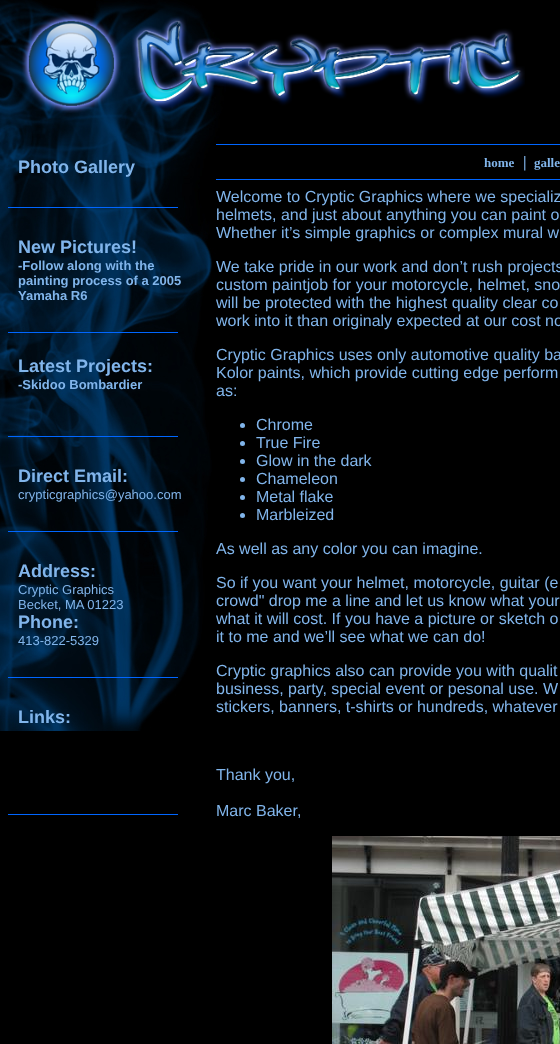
<?xml version="1.0" encoding="UTF-8"?>
<svg xmlns="http://www.w3.org/2000/svg" width="560" height="1044">
    <rect width="100%" height="100%" fill="#000000"/>
    <image x="0" y="0" width="226" height="731" href="img_01.png"/>
    <image x="21" y="14" width="504" height="99" href="img_02.png"/>
    <text x="18" y="173" font-family="Liberation Sans" font-size="18" font-weight="700" fill="#81B5EB">Photo Gallery</text>
    <rect x="8" y="207" width="170" height="1" fill="#0066FF"/>
    <text x="18" y="253" font-family="Liberation Sans" font-size="18" font-weight="700" fill="#81B5EB">New Pictures!</text>
    <text font-family="Liberation Sans" font-size="13" font-weight="700" fill="#81B5EB">
        <tspan x="18" y="270">-Follow along with the</tspan>
        <tspan x="18" y="285">painting process of a 2005</tspan>
        <tspan x="18" y="300">Yamaha R6</tspan>
    </text>
    <rect x="8" y="332" width="170" height="1" fill="#0066FF"/>
    <text x="18" y="372" font-family="Liberation Sans" font-size="18" font-weight="700" fill="#81B5EB">Latest Projects:</text>
    <text x="18" y="389" font-family="Liberation Sans" font-size="13" font-weight="700" fill="#81B5EB">-Skidoo Bombardier</text>
    <rect x="8" y="436" width="170" height="1" fill="#0066FF"/>
    <text x="18" y="482" font-family="Liberation Sans" font-size="18" font-weight="700" fill="#81B5EB">Direct Email:</text>
    <text x="18" y="499" font-family="Liberation Sans" font-size="13" fill="#81B5EB">crypticgraphics@yahoo.com</text>
    <rect x="8" y="531" width="170" height="1" fill="#0066FF"/>
    <text x="18" y="577" font-family="Liberation Sans" font-size="18" font-weight="700" fill="#81B5EB">Address:</text>
    <text font-family="Liberation Sans" font-size="13" fill="#81B5EB">
        <tspan x="18" y="594">Cryptic Graphics</tspan>
        <tspan x="18" y="609">Becket, MA 01223</tspan>
    </text>
    <text x="18" y="628" font-family="Liberation Sans" font-size="18" font-weight="700" fill="#81B5EB">Phone:</text>
    <text x="18" y="645" font-family="Liberation Sans" font-size="13" fill="#81B5EB">413-822-5329</text>
    <rect x="8" y="677" width="170" height="1" fill="#0066FF"/>
    <text x="18" y="723" font-family="Liberation Sans" font-size="18" font-weight="700" fill="#81B5EB">Links:</text>
    <rect x="8" y="814" width="170" height="1" fill="#0066FF"/>
    <rect x="216" y="144" width="344" height="1" fill="#0066FF"/>
    <text x="484" y="167" font-family="Liberation Serif" font-size="13" font-weight="700" fill="#81B5EB">home</text>
    <text x="523" y="167" font-family="Liberation Serif" font-size="16" font-weight="700" fill="#81B5EB">|</text>
    <text x="534" y="167" font-family="Liberation Serif" font-size="13" font-weight="700" fill="#81B5EB">galle</text>
    <rect x="216" y="179" width="344" height="1" fill="#0066FF"/>
    <text font-family="Liberation Sans" font-size="16" fill="#81B5EB">
        <tspan x="216" y="202">Welcome to Cryptic Graphics where we specializ</tspan>
        <tspan x="216" y="220">helmets, and just about anything you can paint o</tspan>
        <tspan x="216" y="238">Whether it’s simple graphics or complex mural w</tspan>
    </text>
    <text font-family="Liberation Sans" font-size="16" fill="#81B5EB">
        <tspan x="216" y="272">We take pride in our work and don’t rush projects</tspan>
        <tspan x="216" y="290">custom paintjob for your motorcycle, helmet, sno</tspan>
        <tspan x="216" y="308">will be protected with the highest quality clear co</tspan>
        <tspan x="216" y="326">work into it than originaly expected at our cost no</tspan>
    </text>
    <text font-family="Liberation Sans" font-size="16" fill="#81B5EB">
        <tspan x="216" y="360">Cryptic Graphics uses only automotive quality ba</tspan>
        <tspan x="216" y="378">Kolor paints, which provide cutting edge perform</tspan>
        <tspan x="216" y="396">as:</tspan>
    </text>
    <circle cx="242.5" cy="425.5" r="2.5" fill="#81B5EB"/>
    <text x="256" y="430" font-family="Liberation Sans" font-size="16" fill="#81B5EB">Chrome</text>
    <circle cx="242.5" cy="443.5" r="2.5" fill="#81B5EB"/>
    <text x="256" y="448" font-family="Liberation Sans" font-size="16" fill="#81B5EB">True Fire</text>
    <circle cx="242.5" cy="461.5" r="2.5" fill="#81B5EB"/>
    <text x="256" y="466" font-family="Liberation Sans" font-size="16" fill="#81B5EB">Glow in the dark</text>
    <circle cx="242.5" cy="479.5" r="2.5" fill="#81B5EB"/>
    <text x="256" y="484" font-family="Liberation Sans" font-size="16" fill="#81B5EB">Chameleon</text>
    <circle cx="242.5" cy="497.5" r="2.5" fill="#81B5EB"/>
    <text x="256" y="502" font-family="Liberation Sans" font-size="16" fill="#81B5EB">Metal flake</text>
    <circle cx="242.5" cy="515.5" r="2.5" fill="#81B5EB"/>
    <text x="256" y="520" font-family="Liberation Sans" font-size="16" fill="#81B5EB">Marbleized</text>
    <text x="216" y="554" font-family="Liberation Sans" font-size="16" fill="#81B5EB">As well as any color you can imagine.</text>
    <text font-family="Liberation Sans" font-size="16" fill="#81B5EB">
        <tspan x="216" y="588">So if you want your helmet, motorcycle, guitar (e</tspan>
        <tspan x="216" y="606">crowd" drop me a line and let us know what your</tspan>
        <tspan x="216" y="624">what it will cost. If you have a picture or sketch o</tspan>
        <tspan x="216" y="642">it to me and we’ll see what we can do!</tspan>
    </text>
    <text font-family="Liberation Sans" font-size="16" fill="#81B5EB">
        <tspan x="216" y="676">Cryptic graphics also can provide you with qualit</tspan>
        <tspan x="216" y="694">business, party, special event or pesonal use. W</tspan>
        <tspan x="216" y="712">stickers, banners, t-shirts or hundreds, whatever</tspan>
    </text>
    <text x="216" y="780" font-family="Liberation Sans" font-size="16" fill="#81B5EB">Thank you,</text>
    <text x="216" y="816" font-family="Liberation Sans" font-size="16" fill="#81B5EB">Marc Baker,</text>
    <image x="332" y="836" width="228" height="208" href="img_03.png"/>
</svg>
